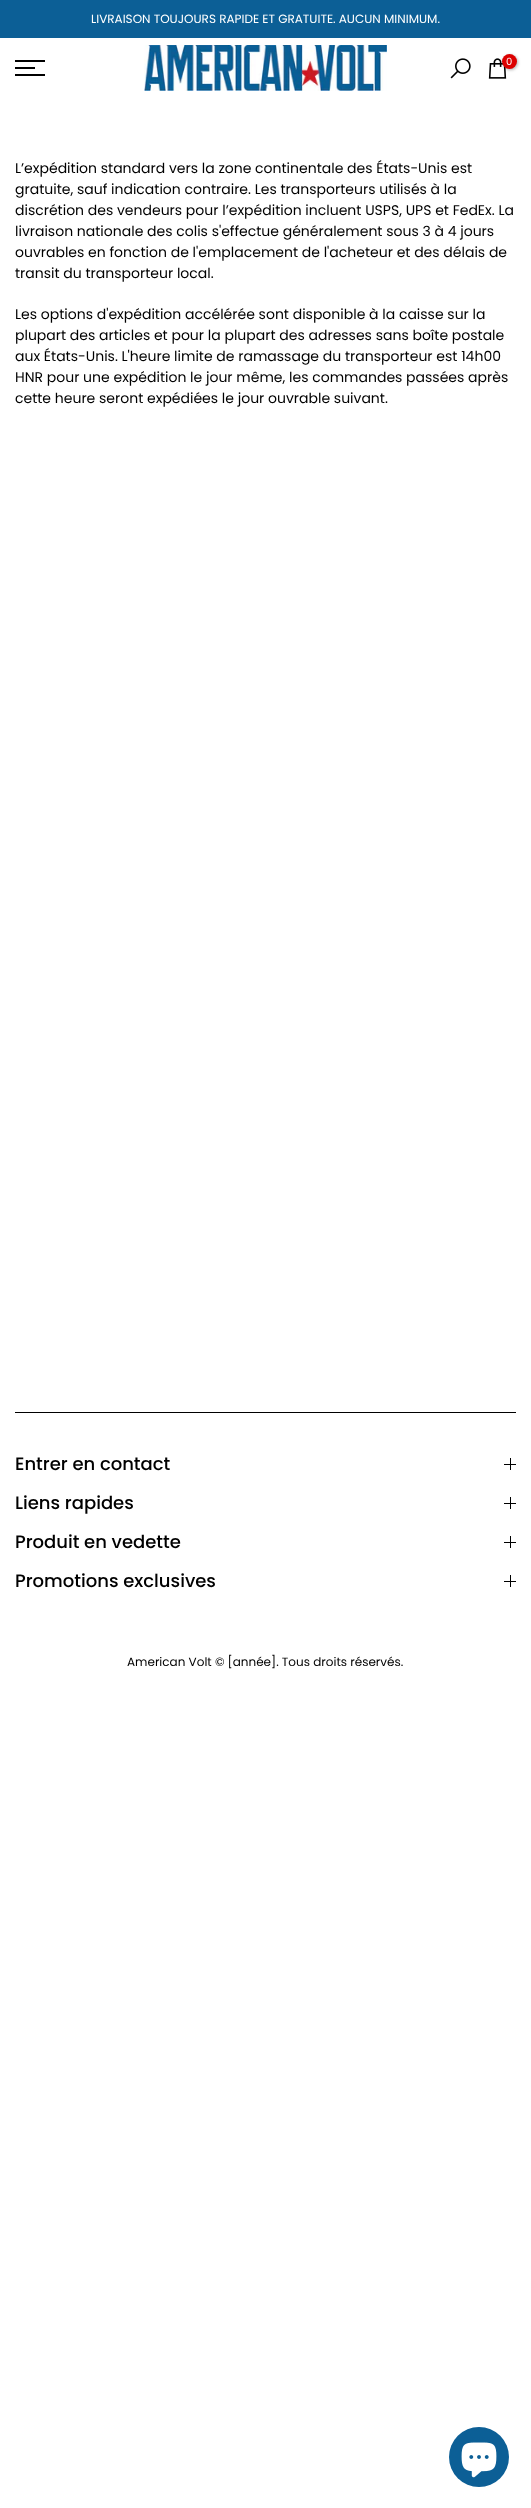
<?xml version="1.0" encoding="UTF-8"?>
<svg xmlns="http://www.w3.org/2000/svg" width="531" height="2508">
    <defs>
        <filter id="blur1" x="-50%" y="-200%" width="200%" height="500%"><feGaussianBlur stdDeviation="1.5"/></filter>
    </defs>
    <rect width="100%" height="100%" fill="#FFFFFF"/>
    <rect x="0" y="0" width="531" height="38" fill="#0C5F96"/>
    <text x="91" y="23" font-family="Poppins" font-size="12" fill="#FFFFFF">LIVRAISON TOUJOURS RAPIDE ET GRATUITE. AUCUN MINIMUM.</text>
    <rect x="15" y="60" width="30" height="2" fill="#000000"/>
    <rect x="15" y="67" width="20" height="2" fill="#000000"/>
    <rect x="15" y="74" width="30" height="2" fill="#000000"/>
    <image x="144" y="45" width="243" height="46" href="img_01.png"/>
    <image x="450" y="58" width="21" height="21" href="img_02.png"/>
    <image x="488" y="58" width="19" height="21" href="img_03.png"/>
    <rect x="503" y="55" width="15" height="15" rx="7.5" fill="#000000" fill-opacity="0.3" filter="url(#blur1)"/>
    <circle cx="509.5" cy="61.5" r="7.5" fill="#DC0000"/>
    <text x="506" y="65" font-family="Poppins" font-size="10" fill="#FFFFFF">0</text>
    <text font-family="Poppins" font-size="14" fill="#000000">
        <tspan x="15" y="173">L’expédition standard vers la zone continentale des États-Unis est</tspan>
        <tspan x="15" y="194">gratuite, sauf indication contraire. Les transporteurs utilisés à la</tspan>
        <tspan x="15" y="215">discrétion des vendeurs pour l’expédition incluent USPS, UPS et FedEx. La</tspan>
        <tspan x="15" y="236">livraison nationale des colis s'effectue généralement sous 3 à 4 jours</tspan>
        <tspan x="15" y="257">ouvrables en fonction de l'emplacement de l'acheteur et des délais de</tspan>
        <tspan x="15" y="278">transit du transporteur local.</tspan>
    </text>
    <text font-family="Poppins" font-size="14" fill="#000000">
        <tspan x="15" y="319">Les options d'expédition accélérée sont disponible à la caisse sur la</tspan>
        <tspan x="15" y="340">plupart des articles et pour la plupart des adresses sans boîte postale</tspan>
        <tspan x="15" y="361">aux États-Unis. L'heure limite de ramassage du transporteur est 14h00</tspan>
        <tspan x="15" y="382">HNR pour une expédition le jour même, les commandes passées après</tspan>
        <tspan x="15" y="403">cette heure seront expédiées le jour ouvrable suivant.</tspan>
    </text>
    <rect x="15" y="1412" width="501" height="1" fill="#000000"/>
    <text x="15" y="1470" font-family="Poppins" font-size="18" font-weight="500" fill="#000000">Entrer en contact</text>
    <rect x="510" y="1458" width="1" height="12" fill="#000000"/>
    <rect x="504" y="1464" width="12" height="1" fill="#000000"/>
    <text x="15" y="1509" font-family="Poppins" font-size="18" font-weight="500" fill="#000000">Liens rapides</text>
    <rect x="510" y="1497" width="1" height="12" fill="#000000"/>
    <rect x="504" y="1503" width="12" height="1" fill="#000000"/>
    <text x="15" y="1548" font-family="Poppins" font-size="18" font-weight="500" fill="#000000">Produit en vedette</text>
    <rect x="510" y="1536" width="1" height="12" fill="#000000"/>
    <rect x="504" y="1542" width="12" height="1" fill="#000000"/>
    <text x="15" y="1587" font-family="Poppins" font-size="18" font-weight="500" fill="#000000">Promotions exclusives</text>
    <rect x="510" y="1575" width="1" height="12" fill="#000000"/>
    <rect x="504" y="1581" width="12" height="1" fill="#000000"/>
    <text x="127" y="1666" font-family="Poppins" font-size="12" fill="#000000">American Volt © [année]. Tous droits réservés.</text>
    <circle cx="479" cy="2457" r="30" fill="#0C5F96"/>
    <image x="461" y="2442" width="36" height="36" href="img_04.png"/>
</svg>
